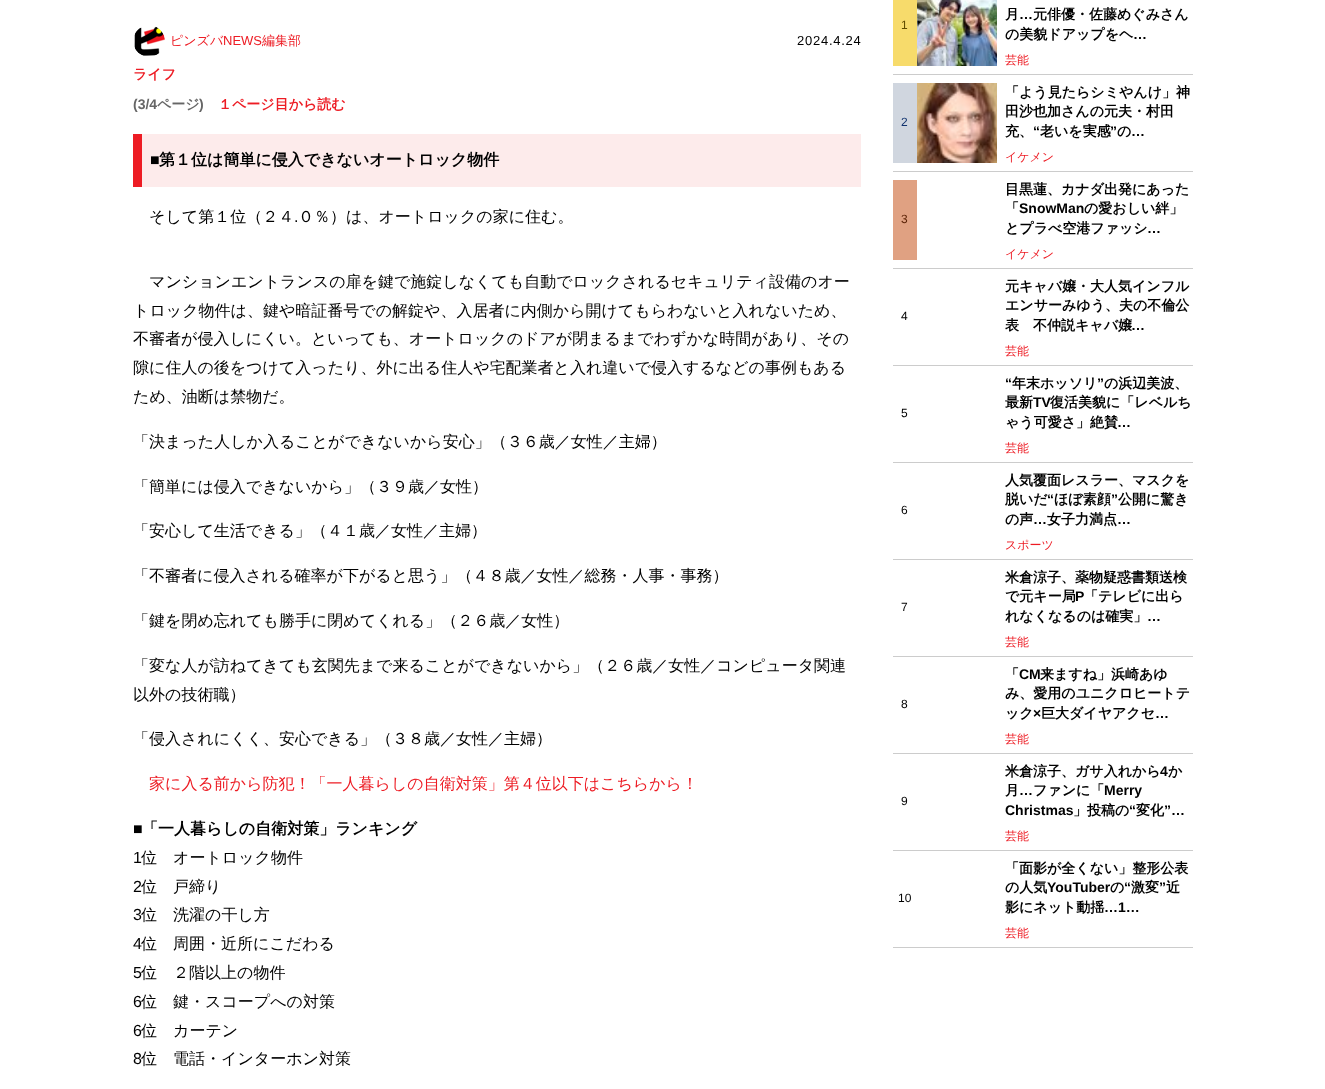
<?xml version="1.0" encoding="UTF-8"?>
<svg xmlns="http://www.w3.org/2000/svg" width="1325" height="1089">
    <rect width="100%" height="100%" fill="#FFFFFF"/>
    <image x="134" y="26" width="31" height="30" href="img_01.png"/>
    <text x="170" y="45" font-family="WenQuanYi Zen Hei" font-size="13" font-weight="500" fill="#ED1C24">ピンズバ</text>
    <text x="223" y="45" font-family="Liberation Sans" font-size="13" fill="#ED1C24">NEWS</text>
    <text x="262" y="45" font-family="WenQuanYi Zen Hei" font-size="13" font-weight="500" fill="#ED1C24">編集部</text>
    <text x="797" y="45" font-family="Liberation Sans" font-size="13" letter-spacing="0.75" fill="#000000">2024.4.24</text>
    <text x="133" y="79" font-family="WenQuanYi Zen Hei" font-size="14" font-weight="700" fill="#ED1C24">ライフ</text>
    <text x="133" y="109" font-family="Liberation Sans" font-size="14" font-weight="700" fill="#666666">(3/4</text>
    <text x="157" y="109" font-family="WenQuanYi Zen Hei" font-size="14" font-weight="700" fill="#666666">ページ</text>
    <text x="199" y="109" font-family="Liberation Sans" font-size="14" font-weight="700" fill="#666666">)</text>
    <text x="218" y="109" font-family="WenQuanYi Zen Hei" font-size="14" font-weight="700" fill="#ED1C24">１ページ目から読む</text>
    <rect x="142" y="134" width="719" height="53" fill="#FDEBEB"/>
    <rect x="133" y="134" width="9" height="53" fill="#ED1C24"/>
    <text x="150" y="165" font-family="Liberation Sans" font-size="16" font-weight="700" fill="#000000">■</text>
    <text x="159" y="165" font-family="WenQuanYi Zen Hei" font-size="16" font-weight="700" fill="#000000">第１位は簡単に侵入できないオートロック物件</text>
    <text x="149" y="222" font-family="WenQuanYi Zen Hei" font-size="16" font-weight="500" fill="#000000">そして第１位（２４</text>
    <text x="294" y="222" font-family="Liberation Sans" font-size="16" fill="#000000">.</text>
    <text x="298" y="222" font-family="WenQuanYi Zen Hei" font-size="16" font-weight="500" fill="#000000">０％）は、オートロックの家に住む。</text>
    <text x="149" y="287" font-family="WenQuanYi Zen Hei" font-size="16" font-weight="500" fill="#000000">マンションエントランスの扉を鍵で施錠しなくても自動でロックされるセキュリティ設備のオー</text>
    <text font-family="WenQuanYi Zen Hei" font-size="16" font-weight="500" fill="#000000">
        <tspan x="133" y="316">トロック物件は、鍵や暗証番号での解錠や、入居者に内側から開けてもらわないと入れないため、</tspan>
        <tspan x="133" y="344">不審者が侵入しにくい。といっても、オートロックのドアが閉まるまでわずかな時間があり、その</tspan>
        <tspan x="133" y="373">隙に住人の後をつけて入ったり、外に出る住人や宅配業者と入れ違いで侵入するなどの事例もある</tspan>
        <tspan x="133" y="402">ため、油断は禁物だ。</tspan>
    </text>
    <text x="133" y="447" font-family="WenQuanYi Zen Hei" font-size="16" font-weight="500" fill="#000000">「決まった人しか入ることができないから安心」（３６歳／女性／主婦）</text>
    <text x="133" y="492" font-family="WenQuanYi Zen Hei" font-size="16" font-weight="500" fill="#000000">「簡単には侵入できないから」（３９歳／女性）</text>
    <text x="133" y="536" font-family="WenQuanYi Zen Hei" font-size="16" font-weight="500" fill="#000000">「安心して生活できる」（４１歳／女性／主婦）</text>
    <text x="133" y="581" font-family="WenQuanYi Zen Hei" font-size="16" font-weight="500" fill="#000000">「不審者に侵入される確率が下がると思う」（４８歳／女性／総務・人事・事務）</text>
    <text x="133" y="626" font-family="WenQuanYi Zen Hei" font-size="16" font-weight="500" fill="#000000">「鍵を閉め忘れても勝手に閉めてくれる」（２６歳／女性）</text>
    <text font-family="WenQuanYi Zen Hei" font-size="16" font-weight="500" fill="#000000">
        <tspan x="133" y="671">「変な人が訪ねてきても玄関先まで来ることができないから」（２６歳／女性／コンピュータ関連</tspan>
        <tspan x="133" y="700">以外の技術職）</tspan>
    </text>
    <text x="133" y="744" font-family="WenQuanYi Zen Hei" font-size="16" font-weight="500" fill="#000000">「侵入されにくく、安心できる」（３８歳／女性／主婦）</text>
    <text x="149" y="789" font-family="WenQuanYi Zen Hei" font-size="16" font-weight="500" fill="#ED1C24">家に入る前から防犯！「一人暮らしの自衛対策」第４位以下はこちらから！</text>
    <text x="133" y="834" font-family="Liberation Sans" font-size="16" font-weight="700" fill="#000000">■</text>
    <text x="142" y="834" font-family="WenQuanYi Zen Hei" font-size="16" font-weight="700" fill="#000000">「一人暮らしの自衛対策」ランキング</text>
    <text x="133" y="863" font-family="Liberation Sans" font-size="16" fill="#000000">1</text>
    <text x="141" y="863" font-family="WenQuanYi Zen Hei" font-size="16" font-weight="500" fill="#000000">位　オートロック物件</text>
    <text x="133" y="892" font-family="Liberation Sans" font-size="16" fill="#000000">2</text>
    <text x="141" y="892" font-family="WenQuanYi Zen Hei" font-size="16" font-weight="500" fill="#000000">位　戸締り</text>
    <text x="133" y="920" font-family="Liberation Sans" font-size="16" fill="#000000">3</text>
    <text x="141" y="920" font-family="WenQuanYi Zen Hei" font-size="16" font-weight="500" fill="#000000">位　洗濯の干し方</text>
    <text x="133" y="949" font-family="Liberation Sans" font-size="16" fill="#000000">4</text>
    <text x="141" y="949" font-family="WenQuanYi Zen Hei" font-size="16" font-weight="500" fill="#000000">位　周囲・近所にこだわる</text>
    <text x="133" y="978" font-family="Liberation Sans" font-size="16" fill="#000000">5</text>
    <text x="141" y="978" font-family="WenQuanYi Zen Hei" font-size="16" font-weight="500" fill="#000000">位　２階以上の物件</text>
    <text x="133" y="1007" font-family="Liberation Sans" font-size="16" fill="#000000">6</text>
    <text x="141" y="1007" font-family="WenQuanYi Zen Hei" font-size="16" font-weight="500" fill="#000000">位　鍵・スコープへの対策</text>
    <text x="133" y="1036" font-family="Liberation Sans" font-size="16" fill="#000000">6</text>
    <text x="141" y="1036" font-family="WenQuanYi Zen Hei" font-size="16" font-weight="500" fill="#000000">位　カーテン</text>
    <text x="133" y="1064" font-family="Liberation Sans" font-size="16" fill="#000000">8</text>
    <text x="141" y="1064" font-family="WenQuanYi Zen Hei" font-size="16" font-weight="500" fill="#000000">位　電話・インターホン対策</text>
    <rect x="893" y="74" width="300" height="1" fill="#CCCCCC"/>
    <rect x="893" y="0" width="24" height="66" fill="#F7DB6B"/>
    <text x="901" y="29" font-family="Liberation Sans" font-size="12" fill="#614D00">1</text>
    <image x="917" y="0" width="80" height="66" href="img_02.png"/>
    <text x="1005" y="19" font-family="WenQuanYi Zen Hei" font-size="14" font-weight="700" fill="#000000">月</text>
    <text x="1019" y="19" font-family="Liberation Sans" font-size="14" font-weight="700" fill="#000000">…</text>
    <text x="1033" y="19" font-family="WenQuanYi Zen Hei" font-size="14" font-weight="700" fill="#000000">元俳優・佐藤めぐみさん</text>
    <text x="1005" y="39" font-family="WenQuanYi Zen Hei" font-size="14" font-weight="700" fill="#000000">の美貌ドアップをヘ</text>
    <text x="1133" y="39" font-family="Liberation Sans" font-size="14" font-weight="700" fill="#000000">…</text>
    <text x="1005" y="64" font-family="WenQuanYi Zen Hei" font-size="12" font-weight="500" fill="#ED1C24">芸能</text>
    <rect x="893" y="171" width="300" height="1" fill="#CCCCCC"/>
    <rect x="893" y="83" width="24" height="80" fill="#D0D6DF"/>
    <text x="901" y="126" font-family="Liberation Sans" font-size="12" fill="#11336E">2</text>
    <image x="917" y="83" width="80" height="80" href="img_03.png"/>
    <text font-family="WenQuanYi Zen Hei" font-size="14" font-weight="700" fill="#000000">
        <tspan x="1005" y="97">「よう見たらシミやんけ」神</tspan>
        <tspan x="1005" y="116">田沙也加さんの元夫・村田</tspan>
        <tspan x="1005" y="136">充、</tspan>
    </text>
    <text x="1033" y="136" font-family="Liberation Sans" font-size="14" font-weight="700" fill="#000000">“</text>
    <text x="1040" y="136" font-family="WenQuanYi Zen Hei" font-size="14" font-weight="700" fill="#000000">老いを実感</text>
    <text x="1110" y="136" font-family="Liberation Sans" font-size="14" font-weight="700" fill="#000000">”</text>
    <text x="1117" y="136" font-family="WenQuanYi Zen Hei" font-size="14" font-weight="700" fill="#000000">の</text>
    <text x="1131" y="136" font-family="Liberation Sans" font-size="14" font-weight="700" fill="#000000">…</text>
    <text x="1005" y="161" font-family="WenQuanYi Zen Hei" font-size="12" font-weight="500" fill="#ED1C24">イケメン</text>
    <rect x="893" y="268" width="300" height="1" fill="#CCCCCC"/>
    <rect x="893" y="180" width="24" height="80" fill="#E0A182"/>
    <text x="901" y="223" font-family="Liberation Sans" font-size="12" fill="#5E2509">3</text>
    <text font-family="WenQuanYi Zen Hei" font-size="14" font-weight="700" fill="#000000">
        <tspan x="1005" y="194">目黒蓮、カナダ出発にあった</tspan>
        <tspan x="1005" y="213">「</tspan>
    </text>
    <text x="1019" y="213" font-family="Liberation Sans" font-size="14" font-weight="700" fill="#000000">SnowMan</text>
    <text x="1084" y="213" font-family="WenQuanYi Zen Hei" font-size="14" font-weight="700" fill="#000000">の愛おしい絆」</text>
    <text x="1005" y="233" font-family="WenQuanYi Zen Hei" font-size="14" font-weight="700" fill="#000000">とプラべ空港ファッシ</text>
    <text x="1147" y="233" font-family="Liberation Sans" font-size="14" font-weight="700" fill="#000000">…</text>
    <text x="1005" y="258" font-family="WenQuanYi Zen Hei" font-size="12" font-weight="500" fill="#ED1C24">イケメン</text>
    <rect x="893" y="365" width="300" height="1" fill="#CCCCCC"/>
    <text x="901" y="320" font-family="Liberation Sans" font-size="12" fill="#000000">4</text>
    <text font-family="WenQuanYi Zen Hei" font-size="14" font-weight="700" fill="#000000">
        <tspan x="1005" y="291">元キャバ嬢・大人気インフル</tspan>
        <tspan x="1005" y="310">エンサーみゆう、夫の不倫公</tspan>
        <tspan x="1005" y="330">表　不仲説キャバ嬢</tspan>
    </text>
    <text x="1131" y="330" font-family="Liberation Sans" font-size="14" font-weight="700" fill="#000000">…</text>
    <text x="1005" y="355" font-family="WenQuanYi Zen Hei" font-size="12" font-weight="500" fill="#ED1C24">芸能</text>
    <rect x="893" y="462" width="300" height="1" fill="#CCCCCC"/>
    <text x="901" y="417" font-family="Liberation Sans" font-size="12" fill="#000000">5</text>
    <text x="1005" y="388" font-family="Liberation Sans" font-size="14" font-weight="700" fill="#000000">“</text>
    <text x="1012" y="388" font-family="WenQuanYi Zen Hei" font-size="14" font-weight="700" fill="#000000">年末ホッソリ</text>
    <text x="1097" y="388" font-family="Liberation Sans" font-size="14" font-weight="700" fill="#000000">”</text>
    <text x="1104" y="388" font-family="WenQuanYi Zen Hei" font-size="14" font-weight="700" fill="#000000">の浜辺美波、</text>
    <text x="1005" y="407" font-family="WenQuanYi Zen Hei" font-size="14" font-weight="700" fill="#000000">最新</text>
    <text x="1033" y="407" font-family="Liberation Sans" font-size="14" font-weight="700" fill="#000000">TV</text>
    <text x="1050" y="407" font-family="WenQuanYi Zen Hei" font-size="14" font-weight="700" fill="#000000">復活美貌に「レベルち</text>
    <text x="1005" y="427" font-family="WenQuanYi Zen Hei" font-size="14" font-weight="700" fill="#000000">ゃう可愛さ」絶賛</text>
    <text x="1117" y="427" font-family="Liberation Sans" font-size="14" font-weight="700" fill="#000000">…</text>
    <text x="1005" y="452" font-family="WenQuanYi Zen Hei" font-size="12" font-weight="500" fill="#ED1C24">芸能</text>
    <rect x="893" y="559" width="300" height="1" fill="#CCCCCC"/>
    <text x="901" y="514" font-family="Liberation Sans" font-size="12" fill="#000000">6</text>
    <text font-family="WenQuanYi Zen Hei" font-size="14" font-weight="700" fill="#000000">
        <tspan x="1005" y="485">人気覆面レスラー、マスクを</tspan>
        <tspan x="1005" y="504">脱いだ</tspan>
    </text>
    <text x="1047" y="504" font-family="Liberation Sans" font-size="14" font-weight="700" fill="#000000">“</text>
    <text x="1054" y="504" font-family="WenQuanYi Zen Hei" font-size="14" font-weight="700" fill="#000000">ほぼ素顔</text>
    <text x="1111" y="504" font-family="Liberation Sans" font-size="14" font-weight="700" fill="#000000">”</text>
    <text x="1118" y="504" font-family="WenQuanYi Zen Hei" font-size="14" font-weight="700" fill="#000000">公開に驚き</text>
    <text x="1005" y="524" font-family="WenQuanYi Zen Hei" font-size="14" font-weight="700" fill="#000000">の声</text>
    <text x="1033" y="524" font-family="Liberation Sans" font-size="14" font-weight="700" fill="#000000">…</text>
    <text x="1047" y="524" font-family="WenQuanYi Zen Hei" font-size="14" font-weight="700" fill="#000000">女子力満点</text>
    <text x="1117" y="524" font-family="Liberation Sans" font-size="14" font-weight="700" fill="#000000">…</text>
    <text x="1005" y="549" font-family="WenQuanYi Zen Hei" font-size="12" font-weight="500" fill="#ED1C24">スポーツ</text>
    <rect x="893" y="656" width="300" height="1" fill="#CCCCCC"/>
    <text x="901" y="611" font-family="Liberation Sans" font-size="12" fill="#000000">7</text>
    <text font-family="WenQuanYi Zen Hei" font-size="14" font-weight="700" fill="#000000">
        <tspan x="1005" y="582">米倉涼子、薬物疑惑書類送検</tspan>
        <tspan x="1005" y="601">で元キー局</tspan>
    </text>
    <text x="1075" y="601" font-family="Liberation Sans" font-size="14" font-weight="700" fill="#000000">P</text>
    <text x="1084" y="601" font-family="WenQuanYi Zen Hei" font-size="14" font-weight="700" fill="#000000">「テレビに出ら</text>
    <text x="1005" y="621" font-family="WenQuanYi Zen Hei" font-size="14" font-weight="700" fill="#000000">れなくなるのは確実」</text>
    <text x="1147" y="621" font-family="Liberation Sans" font-size="14" font-weight="700" fill="#000000">…</text>
    <text x="1005" y="646" font-family="WenQuanYi Zen Hei" font-size="12" font-weight="500" fill="#ED1C24">芸能</text>
    <rect x="893" y="753" width="300" height="1" fill="#CCCCCC"/>
    <text x="901" y="708" font-family="Liberation Sans" font-size="12" fill="#000000">8</text>
    <text x="1005" y="679" font-family="WenQuanYi Zen Hei" font-size="14" font-weight="700" fill="#000000">「</text>
    <text x="1019" y="679" font-family="Liberation Sans" font-size="14" font-weight="700" fill="#000000">CM</text>
    <text x="1040" y="679" font-family="WenQuanYi Zen Hei" font-size="14" font-weight="700" fill="#000000">来ますね」浜崎あゆ</text>
    <text font-family="WenQuanYi Zen Hei" font-size="14" font-weight="700" fill="#000000">
        <tspan x="1005" y="698">み、愛用のユニクロヒートテ</tspan>
        <tspan x="1005" y="718">ック</tspan>
    </text>
    <text x="1033" y="718" font-family="Liberation Sans" font-size="14" font-weight="700" fill="#000000">×</text>
    <text x="1041" y="718" font-family="WenQuanYi Zen Hei" font-size="14" font-weight="700" fill="#000000">巨大ダイヤアクセ</text>
    <text x="1155" y="718" font-family="Liberation Sans" font-size="14" font-weight="700" fill="#000000">…</text>
    <text x="1005" y="743" font-family="WenQuanYi Zen Hei" font-size="12" font-weight="500" fill="#ED1C24">芸能</text>
    <rect x="893" y="850" width="300" height="1" fill="#CCCCCC"/>
    <text x="901" y="805" font-family="Liberation Sans" font-size="12" fill="#000000">9</text>
    <text x="1005" y="776" font-family="WenQuanYi Zen Hei" font-size="14" font-weight="700" fill="#000000">米倉涼子、ガサ入れから</text>
    <text x="1160" y="776" font-family="Liberation Sans" font-size="14" font-weight="700" fill="#000000">4</text>
    <text x="1168" y="776" font-family="WenQuanYi Zen Hei" font-size="14" font-weight="700" fill="#000000">か</text>
    <text x="1005" y="795" font-family="WenQuanYi Zen Hei" font-size="14" font-weight="700" fill="#000000">月</text>
    <text x="1019" y="795" font-family="Liberation Sans" font-size="14" font-weight="700" fill="#000000">…</text>
    <text x="1033" y="795" font-family="WenQuanYi Zen Hei" font-size="14" font-weight="700" fill="#000000">ファンに「</text>
    <text x="1104" y="795" font-family="Liberation Sans" font-size="14" font-weight="700" fill="#000000">Merry</text>
    <text x="1005" y="815" font-family="Liberation Sans" font-size="14" font-weight="700" fill="#000000">Christmas</text>
    <text x="1073" y="815" font-family="WenQuanYi Zen Hei" font-size="14" font-weight="700" fill="#000000">」投稿の</text>
    <text x="1129" y="815" font-family="Liberation Sans" font-size="14" font-weight="700" fill="#000000">“</text>
    <text x="1136" y="815" font-family="WenQuanYi Zen Hei" font-size="14" font-weight="700" fill="#000000">変化</text>
    <text x="1164" y="815" font-family="Liberation Sans" font-size="14" font-weight="700" fill="#000000">”…</text>
    <text x="1005" y="840" font-family="WenQuanYi Zen Hei" font-size="12" font-weight="500" fill="#ED1C24">芸能</text>
    <rect x="893" y="947" width="300" height="1" fill="#CCCCCC"/>
    <text x="898" y="902" font-family="Liberation Sans" font-size="12" fill="#000000">10</text>
    <text font-family="WenQuanYi Zen Hei" font-size="14" font-weight="700" fill="#000000">
        <tspan x="1005" y="873">「面影が全くない」整形公表</tspan>
        <tspan x="1005" y="892">の人気</tspan>
    </text>
    <text x="1047" y="892" font-family="Liberation Sans" font-size="14" font-weight="700" fill="#000000">YouTuber</text>
    <text x="1110" y="892" font-family="WenQuanYi Zen Hei" font-size="14" font-weight="700" fill="#000000">の</text>
    <text x="1124" y="892" font-family="Liberation Sans" font-size="14" font-weight="700" fill="#000000">“</text>
    <text x="1131" y="892" font-family="WenQuanYi Zen Hei" font-size="14" font-weight="700" fill="#000000">激変</text>
    <text x="1159" y="892" font-family="Liberation Sans" font-size="14" font-weight="700" fill="#000000">”</text>
    <text x="1166" y="892" font-family="WenQuanYi Zen Hei" font-size="14" font-weight="700" fill="#000000">近</text>
    <text x="1005" y="912" font-family="WenQuanYi Zen Hei" font-size="14" font-weight="700" fill="#000000">影にネット動揺</text>
    <text x="1104" y="912" font-family="Liberation Sans" font-size="14" font-weight="700" fill="#000000">…1…</text>
    <text x="1005" y="937" font-family="WenQuanYi Zen Hei" font-size="12" font-weight="500" fill="#ED1C24">芸能</text>
</svg>
